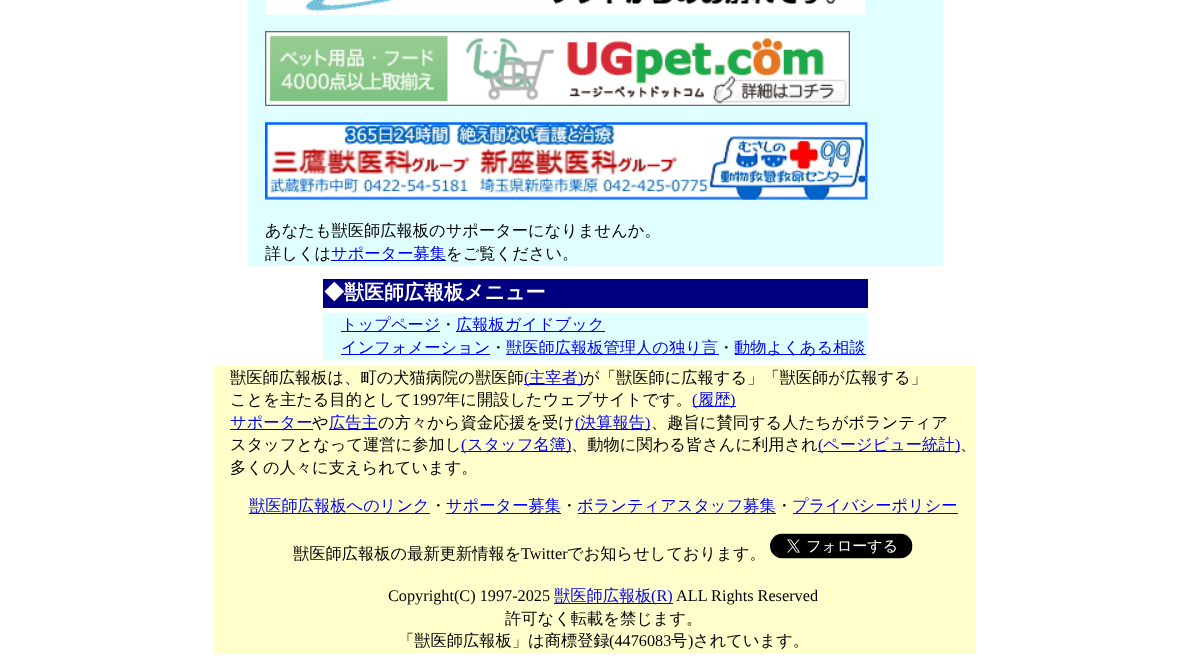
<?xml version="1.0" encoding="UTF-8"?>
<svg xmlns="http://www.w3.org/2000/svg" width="1190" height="672">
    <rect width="100%" height="100%" fill="#FFFFFF"/>
    <rect x="248" y="0" width="695" height="266" fill="#E0FFFF"/>
    <image x="265" y="0" width="600" height="15" href="img_01.png"/>
    <image x="265" y="31" width="585" height="75" href="img_02.png"/>
    <image x="265" y="122" width="603" height="78" href="img_03.png"/>
    <text font-family="WenQuanYi Zen Hei" font-size="16.25" font-weight="500" fill="#000000">
        <tspan x="265" y="236">あなたも獣医師広報板のサポーターになりませんか。</tspan>
        <tspan x="265" y="259">詳しくは</tspan>
    </text>
    <rect x="331" y="260" width="115" height="1" fill="#0000EE"/>
    <text x="331" y="259" font-family="WenQuanYi Zen Hei" font-size="16.25" font-weight="500" fill="#0000EE">サポーター募集</text>
    <text x="446" y="259" font-family="WenQuanYi Zen Hei" font-size="16.25" font-weight="500" fill="#000000">をご覧ください。</text>
    <rect x="323" y="279" width="545" height="29" fill="#000080"/>
    <text x="324" y="299" font-family="WenQuanYi Zen Hei" font-size="20" font-weight="700" fill="#FFFFFF">◆獣医師広報板メニュー</text>
    <rect x="323" y="313" width="545" height="47" fill="#E0FFFF"/>
    <rect x="341" y="331" width="99" height="1" fill="#0000EE"/>
    <text x="341" y="330" font-family="WenQuanYi Zen Hei" font-size="16.25" font-weight="500" fill="#0000EE">トップページ</text>
    <text x="440" y="330" font-family="WenQuanYi Zen Hei" font-size="16.25" font-weight="500" fill="#000000">・</text>
    <rect x="456" y="331" width="149" height="1" fill="#0000EE"/>
    <text x="456" y="330" font-family="WenQuanYi Zen Hei" font-size="16.25" font-weight="500" fill="#0000EE">広報板ガイドブック</text>
    <rect x="341" y="354" width="149" height="1" fill="#0000EE"/>
    <text x="341" y="353" font-family="WenQuanYi Zen Hei" font-size="16.25" font-weight="500" fill="#0000EE">インフォメーション</text>
    <text x="490" y="353" font-family="WenQuanYi Zen Hei" font-size="16.25" font-weight="500" fill="#000000">・</text>
    <rect x="506" y="354" width="213" height="1" fill="#0000EE"/>
    <text x="506" y="353" font-family="WenQuanYi Zen Hei" font-size="16.25" font-weight="500" fill="#0000EE">獣医師広報板管理人の独り言</text>
    <text x="718" y="353" font-family="WenQuanYi Zen Hei" font-size="16.25" font-weight="500" fill="#000000">・</text>
    <rect x="735" y="354" width="131" height="1" fill="#0000EE"/>
    <text x="734" y="353" font-family="WenQuanYi Zen Hei" font-size="16.25" font-weight="500" fill="#0000EE">動物よくある相談</text>
    <rect x="214" y="366" width="762" height="287" fill="#FFFFCC"/>
    <text x="230" y="383" font-family="WenQuanYi Zen Hei" font-size="16.25" font-weight="500" fill="#000000">獣医師広報板は、町の犬猫病院の獣医師</text>
    <rect x="524" y="384" width="60" height="1" fill="#0000EE"/>
    <text x="524" y="383" font-family="Liberation Serif" font-size="16.25" fill="#0000EE">(</text>
    <text x="529" y="383" font-family="WenQuanYi Zen Hei" font-size="16.25" font-weight="500" fill="#0000EE">主宰者</text>
    <text x="578" y="383" font-family="Liberation Serif" font-size="16.25" fill="#0000EE">)</text>
    <text x="583" y="383" font-family="WenQuanYi Zen Hei" font-size="16.25" font-weight="500" fill="#000000">が「獣医師に広報する」「獣医師が広報する」</text>
    <text x="230" y="405" font-family="WenQuanYi Zen Hei" font-size="16.25" font-weight="500" fill="#000000">ことを主たる目的として</text>
    <text x="412" y="405" font-family="Liberation Serif" font-size="16.25" fill="#000000">1997</text>
    <text x="444" y="405" font-family="WenQuanYi Zen Hei" font-size="16.25" font-weight="500" fill="#000000">年に開設したウェブサイトです。</text>
    <rect x="693" y="406" width="43" height="1" fill="#0000EE"/>
    <text x="692" y="405" font-family="Liberation Serif" font-size="16.25" fill="#0000EE">(</text>
    <text x="698" y="405" font-family="WenQuanYi Zen Hei" font-size="16.25" font-weight="500" fill="#0000EE">履歴</text>
    <text x="730" y="405" font-family="Liberation Serif" font-size="16.25" fill="#0000EE">)</text>
    <rect x="230" y="429" width="83" height="1" fill="#0000EE"/>
    <text x="230" y="428" font-family="WenQuanYi Zen Hei" font-size="16.25" font-weight="500" fill="#0000EE">サポーター</text>
    <text x="312" y="428" font-family="WenQuanYi Zen Hei" font-size="16.25" font-weight="500" fill="#000000">や</text>
    <rect x="329" y="429" width="49" height="1" fill="#0000EE"/>
    <text x="329" y="428" font-family="WenQuanYi Zen Hei" font-size="16.25" font-weight="500" fill="#0000EE">広告主</text>
    <text x="378" y="428" font-family="WenQuanYi Zen Hei" font-size="16.25" font-weight="500" fill="#000000">の方々から資金応援を受け</text>
    <rect x="575" y="429" width="75" height="1" fill="#0000EE"/>
    <text x="575" y="428" font-family="Liberation Serif" font-size="16.25" fill="#0000EE">(</text>
    <text x="580" y="428" font-family="WenQuanYi Zen Hei" font-size="16.25" font-weight="500" fill="#0000EE">決算報告</text>
    <text x="645" y="428" font-family="Liberation Serif" font-size="16.25" fill="#0000EE">)</text>
    <text x="651" y="428" font-family="WenQuanYi Zen Hei" font-size="16.25" font-weight="500" fill="#000000">、趣旨に賛同する人たちがボランティア</text>
    <text x="230" y="450" font-family="WenQuanYi Zen Hei" font-size="16.25" font-weight="500" fill="#000000">スタッフとなって運営に参加し</text>
    <rect x="461" y="451" width="110" height="1" fill="#0000EE"/>
    <text x="461" y="450" font-family="Liberation Serif" font-size="16.25" fill="#0000EE">(</text>
    <text x="467" y="450" font-family="WenQuanYi Zen Hei" font-size="16.25" font-weight="500" fill="#0000EE">スタッフ名簿</text>
    <text x="566" y="450" font-family="Liberation Serif" font-size="16.25" fill="#0000EE">)</text>
    <text x="571" y="450" font-family="WenQuanYi Zen Hei" font-size="16.25" font-weight="500" fill="#000000">、動物に関わる皆さんに利用され</text>
    <rect x="818" y="451" width="142" height="1" fill="#0000EE"/>
    <text x="818" y="450" font-family="Liberation Serif" font-size="16.25" fill="#0000EE">(</text>
    <text x="823" y="450" font-family="WenQuanYi Zen Hei" font-size="16.25" font-weight="500" fill="#0000EE">ページビュー統計</text>
    <text x="955" y="450" font-family="Liberation Serif" font-size="16.25" fill="#0000EE">)</text>
    <text x="960" y="450" font-family="WenQuanYi Zen Hei" font-size="16.25" font-weight="500" fill="#000000">、</text>
    <text x="230" y="473" font-family="WenQuanYi Zen Hei" font-size="16.25" font-weight="500" fill="#000000">多くの人々に支えられています。</text>
    <rect x="249" y="513" width="181" height="1" fill="#0000EE"/>
    <text x="249" y="511" font-family="WenQuanYi Zen Hei" font-size="16.25" font-weight="500" fill="#0000EE">獣医師広報板へのリンク</text>
    <text x="430" y="511" font-family="WenQuanYi Zen Hei" font-size="16.25" font-weight="500" fill="#000000">・</text>
    <rect x="446" y="513" width="115" height="1" fill="#0000EE"/>
    <text x="446" y="511" font-family="WenQuanYi Zen Hei" font-size="16.25" font-weight="500" fill="#0000EE">サポーター募集</text>
    <text x="561" y="511" font-family="WenQuanYi Zen Hei" font-size="16.25" font-weight="500" fill="#000000">・</text>
    <rect x="578" y="513" width="198" height="1" fill="#0000EE"/>
    <text x="577" y="511" font-family="WenQuanYi Zen Hei" font-size="16.25" font-weight="500" fill="#0000EE">ボランティアスタッフ募集</text>
    <text x="776" y="511" font-family="WenQuanYi Zen Hei" font-size="16.25" font-weight="500" fill="#000000">・</text>
    <rect x="793" y="513" width="165" height="1" fill="#0000EE"/>
    <text x="792" y="511" font-family="WenQuanYi Zen Hei" font-size="16.25" font-weight="500" fill="#0000EE">プライバシーポリシー</text>
    <text x="293" y="559" font-family="WenQuanYi Zen Hei" font-size="16.25" font-weight="500" fill="#000000">獣医師広報板の最新更新情報を</text>
    <text x="521" y="559" font-family="Liberation Serif" font-size="16.25" fill="#000000">Twitter</text>
    <text x="567" y="559" font-family="WenQuanYi Zen Hei" font-size="16.25" font-weight="500" fill="#000000">でお知らせしております。</text>
    <image x="770" y="533" width="143" height="26" href="img_04.png"/>
    <text x="388" y="601" font-family="Liberation Serif" font-size="16.25" fill="#000000">Copyright(C) 1997-2025</text>
    <rect x="554" y="603" width="119" height="1" fill="#0000EE"/>
    <text x="554" y="601" font-family="WenQuanYi Zen Hei" font-size="16.25" font-weight="500" fill="#0000EE">獣医師広報板</text>
    <text x="651" y="601" font-family="Liberation Serif" font-size="16.25" fill="#0000EE">(R)</text>
    <text x="676" y="601" font-family="Liberation Serif" font-size="16.25" fill="#000000">ALL Rights Reserved</text>
    <text x="505" y="624" font-family="WenQuanYi Zen Hei" font-size="16.25" font-weight="500" fill="#000000">許可なく転載を禁じます。</text>
    <text x="398" y="646" font-family="WenQuanYi Zen Hei" font-size="16.25" font-weight="500" fill="#000000">「獣医師広報板」は商標登録</text>
    <text x="609" y="646" font-family="Liberation Serif" font-size="16.25" fill="#000000">(4476083</text>
    <text x="671" y="646" font-family="WenQuanYi Zen Hei" font-size="16.25" font-weight="500" fill="#000000">号</text>
    <text x="688" y="646" font-family="Liberation Serif" font-size="16.25" fill="#000000">)</text>
    <text x="693" y="646" font-family="WenQuanYi Zen Hei" font-size="16.25" font-weight="500" fill="#000000">されています。</text>
</svg>
